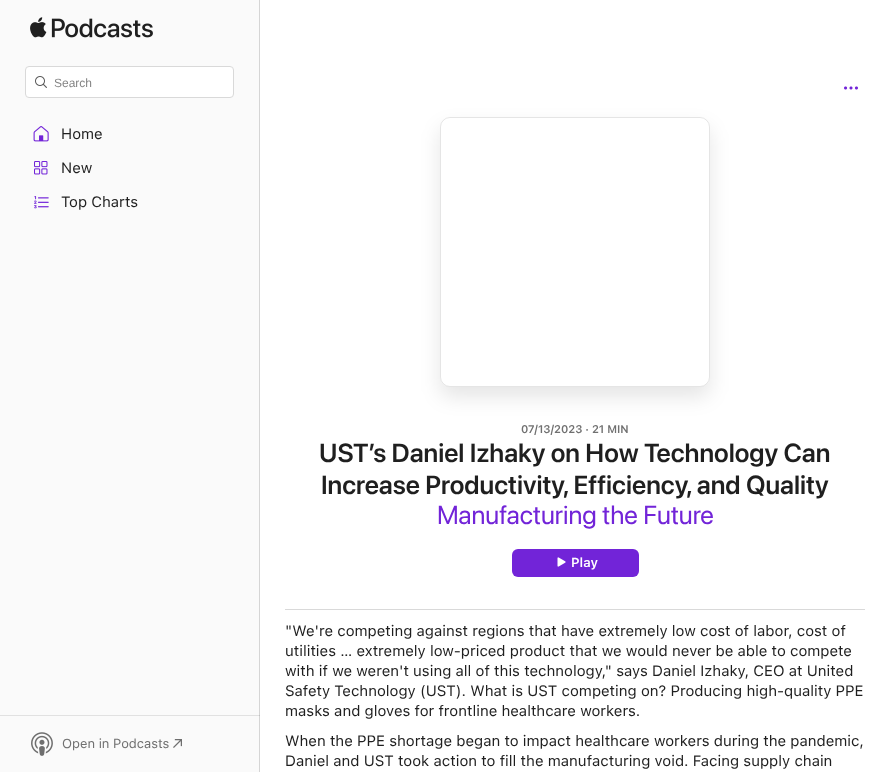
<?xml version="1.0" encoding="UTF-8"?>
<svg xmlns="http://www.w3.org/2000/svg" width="890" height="772">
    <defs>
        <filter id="blur1" x="-50%" y="-200%" width="200%" height="500%"><feGaussianBlur stdDeviation="10"/></filter>
    </defs>
    <rect width="100%" height="100%" fill="#FFFFFF"/>
    <rect x="0" y="0" width="259" height="772" fill="#FAFAFA"/>
    <rect x="0" y="715" width="260" height="1" fill="#E1E1E1"/>
    <rect x="259" y="0" width="1" height="772" fill="#D5D5D5"/>
    <rect x="259" y="715" width="1" height="1" fill="#C0C0C0"/>
    <image x="30" y="17" width="123" height="21" href="img_01.png"/>
    <rect x="25.5" y="66.5" width="208" height="31" rx="3.5" fill="#FFFFFF" stroke="#D9D9D9"/>
    <image x="35" y="76" width="12" height="12" href="img_02.png"/>
    <text x="54" y="87" font-family="Liberation Sans" font-size="12" fill="#858585">Search</text>
    <image x="33" y="126" width="16" height="16" href="img_03.png"/>
    <text x="61" y="139" font-family="'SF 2'" font-size="15" fill="#1F1F1F">Home</text>
    <image x="34" y="161" width="14" height="14" href="img_04.png"/>
    <text x="61" y="173" font-family="'SF 2'" font-size="15" fill="#1F1F1F">New</text>
    <image x="34" y="196" width="15" height="13" href="img_05.png"/>
    <text x="61" y="207" font-family="'SF 2'" font-size="15" fill="#1F1F1F">Top Charts</text>
    <image x="31" y="732" width="22" height="24" href="img_06.png"/>
    <text x="62" y="748" font-family="'SF 2'" font-size="13" fill="#707070">Open in Podcasts</text>
    <image x="173" y="739" width="9" height="9" href="img_07.png"/>
    <image x="844" y="86" width="14" height="4" href="img_08.png"/>
    <rect x="440" y="127" width="270" height="270" rx="10" fill="#000000" fill-opacity="0.1" filter="url(#blur1)"/>
    <rect x="440" y="117" width="270" height="270" rx="10" fill="#FFFFFF"/>
    <rect x="440.5" y="117.5" width="269" height="269" rx="9.5" fill="none" stroke="#000000" stroke-opacity="0.1"/>
    <text x="521" y="433" font-family="SF" font-size="11" font-weight="600" fill="#707070">07/13/2023 · 21 MIN</text>
    <text x="319" y="462" font-family="'SF 2'" font-size="26" font-weight="600" fill="#1F1F1F">UST’s Daniel Izhaky on How Technology Can</text>
    <text x="321" y="494" font-family="'SF 2'" font-size="26" font-weight="600" fill="#1F1F1F">Increase Productivity, Efficiency, and Quality</text>
    <text x="437" y="524" font-family="SF" font-size="26" fill="#7224D8">Manufacturing the Future</text>
    <rect x="512" y="549" width="127" height="28" rx="6" fill="#7224D8"/>
    <image x="557" y="557" width="9" height="10" href="img_09.png"/>
    <text x="571" y="567" font-family="SF" font-size="13" font-weight="600" fill="#FFFFFF">Play</text>
    <rect x="285" y="609" width="580" height="1" fill="#D9D9D9"/>
    <text font-family="'SF 2'" font-size="15" fill="#1F1F1F">
        <tspan x="285" y="636">"We're competing against regions that have extremely low cost of labor, cost of</tspan>
        <tspan x="285" y="656">utilities … extremely low-priced product that we would never be able to compete</tspan>
        <tspan x="285" y="676">with if we weren't using all of this technology," says Daniel Izhaky, CEO at United</tspan>
        <tspan x="285" y="696">Safety Technology (UST). What is UST competing on? Producing high-quality PPE</tspan>
        <tspan x="285" y="716">masks and gloves for frontline healthcare workers.</tspan>
    </text>
    <text font-family="'SF 2'" font-size="15" fill="#1F1F1F">
        <tspan x="285" y="746">When the PPE shortage began to impact healthcare workers during the pandemic,</tspan>
        <tspan x="285" y="766">Daniel and UST took action to fill the manufacturing void. Facing supply chain</tspan>
    </text>
</svg>
